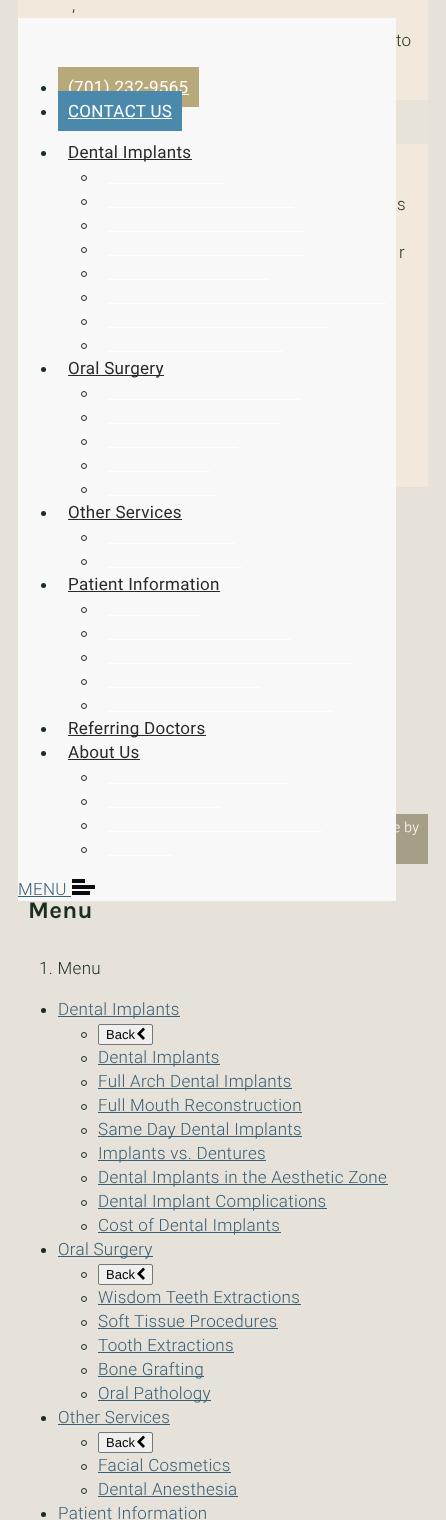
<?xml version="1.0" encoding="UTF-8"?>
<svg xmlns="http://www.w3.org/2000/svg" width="446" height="1520">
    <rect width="100%" height="100%" fill="#E6E1D9"/>
    <rect x="18" y="0" width="410" height="487" fill="#F2E8DC"/>
    <text x="72" y="22" font-family="Roboto" font-size="17" font-weight="300" letter-spacing="0.3" fill="#1A2D1F">’</text>
    <text x="396" y="46" font-family="Roboto" font-size="17" font-weight="300" letter-spacing="0.3" fill="#1A2D1F">to</text>
    <rect x="396" y="100" width="32" height="44" fill="#E7E3D8"/>
    <text x="397" y="210" font-family="Roboto" font-size="17" font-weight="300" letter-spacing="0.3" fill="#1A2D1F">s</text>
    <text x="399" y="258" font-family="Roboto" font-size="17" font-weight="300" letter-spacing="0.3" fill="#1A2D1F">r</text>
    <rect x="396" y="814" width="32" height="50" fill="#A69F88"/>
    <text x="393" y="832" font-family="Roboto" font-size="14" font-weight="300" letter-spacing="0.3" fill="#FFFFFF">e by</text>
    <rect x="18" y="18" width="378" height="883" fill="#F8F8F8"/>
    <circle cx="43.5" cy="88.5" r="2.5" fill="#1A2D1F"/>
    <rect x="58" y="67" width="141" height="40" fill="#B8A97A"/>
    <rect x="182" y="94" width="7" height="1" fill="#FFFFFF"/>
    <text x="68" y="93" font-family="Roboto" font-size="17" letter-spacing="0.3" fill="#FFFFFF">(701) 232-9565</text>
    <circle cx="43.5" cy="112.5" r="2.5" fill="#1A2D1F"/>
    <rect x="58" y="91" width="124" height="40" fill="#4A88AC"/>
    <text x="68" y="117" font-family="Roboto" font-size="17" letter-spacing="0.3" fill="#FFFFFF">CONTACT US</text>
    <rect x="68" y="118" width="104" height="1" fill="#FFFFFF"/>
    <circle cx="43.5" cy="153.5" r="2.5" fill="#1A2D1F"/>
    <rect x="68" y="159" width="124" height="1" fill="#292929"/>
    <text x="68" y="158" font-family="Roboto" font-size="17" letter-spacing="0.3" fill="#292929">Dental Implants</text>
    <circle cx="84" cy="178" r="2.5" fill="none" stroke="#1A2D1F"/>
    <rect x="108" y="183" width="117" height="1" fill="#FFFFFF"/>
    <circle cx="84" cy="202" r="2.5" fill="none" stroke="#1A2D1F"/>
    <rect x="108" y="207" width="186" height="1" fill="#FFFFFF"/>
    <circle cx="84" cy="226" r="2.5" fill="none" stroke="#1A2D1F"/>
    <rect x="108" y="231" width="195" height="1" fill="#FFFFFF"/>
    <circle cx="84" cy="250" r="2.5" fill="none" stroke="#1A2D1F"/>
    <rect x="108" y="255" width="195" height="1" fill="#FFFFFF"/>
    <circle cx="84" cy="274" r="2.5" fill="none" stroke="#1A2D1F"/>
    <rect x="108" y="279" width="161" height="1" fill="#FFFFFF"/>
    <circle cx="84" cy="298" r="2.5" fill="none" stroke="#1A2D1F"/>
    <rect x="108" y="303" width="278" height="1" fill="#FFFFFF"/>
    <circle cx="84" cy="322" r="2.5" fill="none" stroke="#1A2D1F"/>
    <rect x="108" y="327" width="219" height="1" fill="#FFFFFF"/>
    <circle cx="84" cy="346" r="2.5" fill="none" stroke="#1A2D1F"/>
    <rect x="108" y="351" width="175" height="1" fill="#FFFFFF"/>
    <circle cx="43.5" cy="369.5" r="2.5" fill="#1A2D1F"/>
    <rect x="68" y="375" width="96" height="1" fill="#292929"/>
    <text x="68" y="374" font-family="Roboto" font-size="17" letter-spacing="0.3" fill="#292929">Oral Surgery</text>
    <circle cx="84" cy="394" r="2.5" fill="none" stroke="#1A2D1F"/>
    <rect x="108" y="399" width="193" height="1" fill="#FFFFFF"/>
    <circle cx="84" cy="418" r="2.5" fill="none" stroke="#1A2D1F"/>
    <rect x="108" y="423" width="173" height="1" fill="#FFFFFF"/>
    <circle cx="84" cy="442" r="2.5" fill="none" stroke="#1A2D1F"/>
    <rect x="108" y="447" width="130" height="1" fill="#FFFFFF"/>
    <circle cx="84" cy="466" r="2.5" fill="none" stroke="#1A2D1F"/>
    <rect x="108" y="471" width="102" height="1" fill="#FFFFFF"/>
    <circle cx="84" cy="490" r="2.5" fill="none" stroke="#1A2D1F"/>
    <rect x="108" y="495" width="109" height="1" fill="#FFFFFF"/>
    <circle cx="43.5" cy="513.5" r="2.5" fill="#1A2D1F"/>
    <text x="68" y="518" font-family="Roboto" font-size="17" letter-spacing="0.3" fill="#292929">Other Services</text>
    <rect x="68" y="519" width="114" height="1" fill="#292929"/>
    <circle cx="84" cy="538" r="2.5" fill="none" stroke="#1A2D1F"/>
    <rect x="108" y="543" width="127" height="1" fill="#FFFFFF"/>
    <circle cx="84" cy="562" r="2.5" fill="none" stroke="#1A2D1F"/>
    <rect x="108" y="567" width="134" height="1" fill="#FFFFFF"/>
    <circle cx="43.5" cy="585.5" r="2.5" fill="#1A2D1F"/>
    <text x="68" y="590" font-family="Roboto" font-size="17" letter-spacing="0.3" fill="#292929">Patient Information</text>
    <rect x="68" y="591" width="152" height="1" fill="#292929"/>
    <circle cx="84" cy="610" r="2.5" fill="none" stroke="#1A2D1F"/>
    <rect x="108" y="615" width="92" height="1" fill="#FFFFFF"/>
    <circle cx="84" cy="634" r="2.5" fill="none" stroke="#1A2D1F"/>
    <rect x="108" y="639" width="183" height="1" fill="#FFFFFF"/>
    <circle cx="84" cy="658" r="2.5" fill="none" stroke="#1A2D1F"/>
    <rect x="108" y="663" width="245" height="1" fill="#FFFFFF"/>
    <circle cx="84" cy="682" r="2.5" fill="none" stroke="#1A2D1F"/>
    <rect x="108" y="687" width="152" height="1" fill="#FFFFFF"/>
    <circle cx="84" cy="706" r="2.5" fill="none" stroke="#1A2D1F"/>
    <rect x="108" y="711" width="225" height="1" fill="#FFFFFF"/>
    <circle cx="43.5" cy="729.5" r="2.5" fill="#1A2D1F"/>
    <rect x="68" y="735" width="138" height="1" fill="#292929"/>
    <text x="68" y="734" font-family="Roboto" font-size="17" letter-spacing="0.3" fill="#292929">Referring Doctors</text>
    <circle cx="43.5" cy="753.5" r="2.5" fill="#1A2D1F"/>
    <text x="68" y="758" font-family="Roboto" font-size="17" letter-spacing="0.3" fill="#292929">About Us</text>
    <rect x="68" y="759" width="72" height="1" fill="#292929"/>
    <circle cx="84" cy="778" r="2.5" fill="none" stroke="#1A2D1F"/>
    <rect x="108" y="783" width="179" height="1" fill="#FFFFFF"/>
    <circle cx="84" cy="802" r="2.5" fill="none" stroke="#1A2D1F"/>
    <rect x="108" y="807" width="113" height="1" fill="#FFFFFF"/>
    <circle cx="84" cy="826" r="2.5" fill="none" stroke="#1A2D1F"/>
    <rect x="108" y="831" width="214" height="1" fill="#FFFFFF"/>
    <circle cx="84" cy="850" r="2.5" fill="none" stroke="#1A2D1F"/>
    <rect x="108" y="855" width="64" height="1" fill="#FFFFFF"/>
    <text x="18" y="895" font-family="Roboto" font-size="17" font-weight="300" letter-spacing="0.3" fill="#385F76">MENU</text>
    <rect x="18" y="896" width="53" height="1" fill="#385F76"/>
    <rect x="72" y="891" width="18" height="4" fill="#0C0C0C"/>
    <rect x="72" y="879" width="13" height="4" fill="#0C0C0C"/>
    <rect x="72" y="885" width="23" height="4" fill="#0C0C0C"/>
    <text x="28" y="918" font-family="Karla" font-size="24" font-weight="700" letter-spacing="0.3" fill="#1A2D1F">Menu</text>
    <text x="39" y="974" font-family="Roboto" font-size="17" font-weight="300" letter-spacing="0.3" fill="#1A2D1F">1. Menu</text>
    <circle cx="43.5" cy="1010.5" r="2.5" fill="#1A2D1F"/>
    <rect x="58" y="1016" width="122" height="1" fill="#385F76"/>
    <text x="58" y="1015" font-family="Roboto" font-size="17" font-weight="300" letter-spacing="0.3" fill="#385F76">Dental Implants</text>
    <circle cx="84" cy="1035" r="2.5" fill="none" stroke="#1A2D1F"/>
    <rect x="98.5" y="1024.5" width="54" height="20" rx="1.5" fill="#EFEFEF" stroke="#767676"/>
    <text x="106" y="1039" font-family="Liberation Sans" font-size="13" fill="#000000">Back</text>
    <image x="137" y="1027" width="8" height="13" href="img_01.png"/>
    <circle cx="84" cy="1059" r="2.5" fill="none" stroke="#1A2D1F"/>
    <rect x="98" y="1064" width="122" height="1" fill="#385F76"/>
    <text x="98" y="1063" font-family="Roboto" font-size="17" font-weight="300" letter-spacing="0.3" fill="#385F76">Dental Implants</text>
    <circle cx="84" cy="1083" r="2.5" fill="none" stroke="#1A2D1F"/>
    <rect x="98" y="1088" width="194" height="1" fill="#385F76"/>
    <text x="98" y="1087" font-family="Roboto" font-size="17" font-weight="300" letter-spacing="0.3" fill="#385F76">Full Arch Dental Implants</text>
    <circle cx="84" cy="1107" r="2.5" fill="none" stroke="#1A2D1F"/>
    <text x="98" y="1111" font-family="Roboto" font-size="17" font-weight="300" letter-spacing="0.3" fill="#385F76">Full Mouth Reconstruction</text>
    <rect x="98" y="1112" width="204" height="1" fill="#385F76"/>
    <circle cx="84" cy="1131" r="2.5" fill="none" stroke="#1A2D1F"/>
    <rect x="98" y="1136" width="204" height="1" fill="#385F76"/>
    <text x="98" y="1135" font-family="Roboto" font-size="17" font-weight="300" letter-spacing="0.3" fill="#385F76">Same Day Dental Implants</text>
    <circle cx="84" cy="1155" r="2.5" fill="none" stroke="#1A2D1F"/>
    <rect x="98" y="1160" width="168" height="1" fill="#385F76"/>
    <text x="98" y="1159" font-family="Roboto" font-size="17" font-weight="300" letter-spacing="0.3" fill="#385F76">Implants vs. Dentures</text>
    <circle cx="84" cy="1179" r="2.5" fill="none" stroke="#1A2D1F"/>
    <rect x="98" y="1184" width="290" height="1" fill="#385F76"/>
    <text x="98" y="1183" font-family="Roboto" font-size="17" font-weight="300" letter-spacing="0.3" fill="#385F76">Dental Implants in the Aesthetic Zone</text>
    <circle cx="84" cy="1203" r="2.5" fill="none" stroke="#1A2D1F"/>
    <rect x="98" y="1208" width="229" height="1" fill="#385F76"/>
    <text x="98" y="1207" font-family="Roboto" font-size="17" font-weight="300" letter-spacing="0.3" fill="#385F76">Dental Implant Complications</text>
    <circle cx="84" cy="1227" r="2.5" fill="none" stroke="#1A2D1F"/>
    <rect x="98" y="1232" width="183" height="1" fill="#385F76"/>
    <text x="98" y="1231" font-family="Roboto" font-size="17" font-weight="300" letter-spacing="0.3" fill="#385F76">Cost of Dental Implants</text>
    <circle cx="43.5" cy="1250.5" r="2.5" fill="#1A2D1F"/>
    <rect x="58" y="1256" width="95" height="1" fill="#385F76"/>
    <text x="58" y="1255" font-family="Roboto" font-size="17" font-weight="300" letter-spacing="0.3" fill="#385F76">Oral Surgery</text>
    <circle cx="84" cy="1275" r="2.5" fill="none" stroke="#1A2D1F"/>
    <rect x="98.5" y="1264.5" width="54" height="20" rx="1.5" fill="#EFEFEF" stroke="#767676"/>
    <text x="106" y="1279" font-family="Liberation Sans" font-size="13" fill="#000000">Back</text>
    <image x="137" y="1267" width="8" height="13" href="img_01.png"/>
    <circle cx="84" cy="1299" r="2.5" fill="none" stroke="#1A2D1F"/>
    <text x="98" y="1303" font-family="Roboto" font-size="17" font-weight="300" letter-spacing="0.3" fill="#385F76">Wisdom Teeth Extractions</text>
    <rect x="98" y="1304" width="203" height="1" fill="#385F76"/>
    <circle cx="84" cy="1323" r="2.5" fill="none" stroke="#1A2D1F"/>
    <text x="98" y="1327" font-family="Roboto" font-size="17" font-weight="300" letter-spacing="0.3" fill="#385F76">Soft Tissue Procedures</text>
    <rect x="98" y="1328" width="180" height="1" fill="#385F76"/>
    <circle cx="84" cy="1347" r="2.5" fill="none" stroke="#1A2D1F"/>
    <text x="98" y="1351" font-family="Roboto" font-size="17" font-weight="300" letter-spacing="0.3" fill="#385F76">Tooth Extractions</text>
    <rect x="98" y="1352" width="136" height="1" fill="#385F76"/>
    <circle cx="84" cy="1371" r="2.5" fill="none" stroke="#1A2D1F"/>
    <rect x="98" y="1376" width="106" height="1" fill="#385F76"/>
    <text x="98" y="1375" font-family="Roboto" font-size="17" font-weight="300" letter-spacing="0.3" fill="#385F76">Bone Grafting</text>
    <circle cx="84" cy="1395" r="2.5" fill="none" stroke="#1A2D1F"/>
    <rect x="98" y="1400" width="113" height="1" fill="#385F76"/>
    <text x="98" y="1399" font-family="Roboto" font-size="17" font-weight="300" letter-spacing="0.3" fill="#385F76">Oral Pathology</text>
    <circle cx="43.5" cy="1418.5" r="2.5" fill="#1A2D1F"/>
    <text x="58" y="1423" font-family="Roboto" font-size="17" font-weight="300" letter-spacing="0.3" fill="#385F76">Other Services</text>
    <rect x="58" y="1424" width="112" height="1" fill="#385F76"/>
    <circle cx="84" cy="1443" r="2.5" fill="none" stroke="#1A2D1F"/>
    <rect x="98.5" y="1432.5" width="54" height="20" rx="1.5" fill="#EFEFEF" stroke="#767676"/>
    <text x="106" y="1447" font-family="Liberation Sans" font-size="13" fill="#000000">Back</text>
    <image x="137" y="1435" width="8" height="13" href="img_01.png"/>
    <circle cx="84" cy="1467" r="2.5" fill="none" stroke="#1A2D1F"/>
    <text x="98" y="1471" font-family="Roboto" font-size="17" font-weight="300" letter-spacing="0.3" fill="#385F76">Facial Cosmetics</text>
    <rect x="98" y="1472" width="133" height="1" fill="#385F76"/>
    <circle cx="84" cy="1491" r="2.5" fill="none" stroke="#1A2D1F"/>
    <text x="98" y="1495" font-family="Roboto" font-size="17" font-weight="300" letter-spacing="0.3" fill="#385F76">Dental Anesthesia</text>
    <rect x="98" y="1496" width="140" height="1" fill="#385F76"/>
    <circle cx="43.5" cy="1514.5" r="2.5" fill="#1A2D1F"/>
    <text x="58" y="1519" font-family="Roboto" font-size="17" font-weight="300" letter-spacing="0.3" fill="#385F76">Patient Information</text>
</svg>
